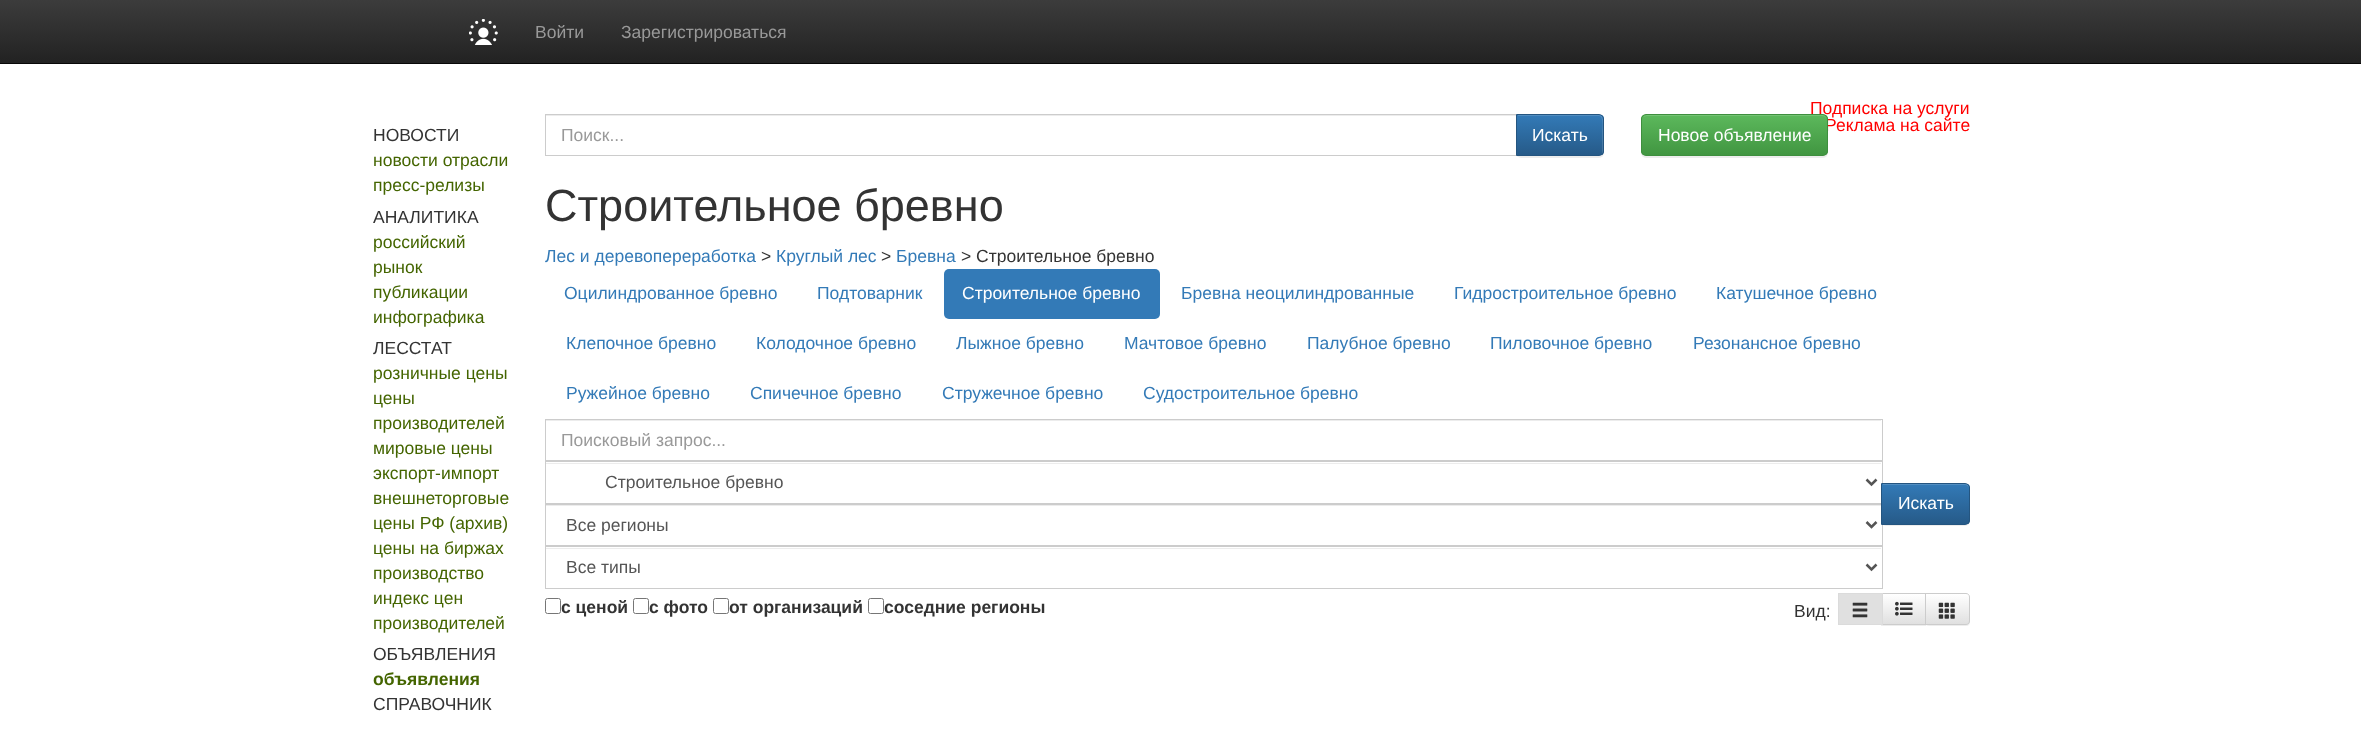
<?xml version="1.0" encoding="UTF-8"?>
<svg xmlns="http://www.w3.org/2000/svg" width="2361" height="729">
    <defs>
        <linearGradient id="g1" gradientUnits="userSpaceOnUse" x1="1181" y1="0" x2="1181" y2="63"><stop offset="0" stop-color="#3C3C3C"/><stop offset="1" stop-color="#222222"/></linearGradient>
        <filter id="blur1" x="-50%" y="-200%" width="200%" height="500%"><feGaussianBlur stdDeviation="0.5"/></filter>
        <clipPath id="clip1"><path d="M 1516 114 H 1599 C 1602 114 1604 116 1604 119 V 151 C 1604 154 1602 156 1599 156 H 1516 Z"/></clipPath>
        <linearGradient id="g2" gradientUnits="userSpaceOnUse" x1="1560" y1="115" x2="1560" y2="155"><stop offset="0" stop-color="#337AB7"/><stop offset="1" stop-color="#265A88"/></linearGradient>
        <clipPath id="clip2"><rect x="1641" y="114" width="187" height="42" rx="5"/></clipPath>
        <linearGradient id="g3" gradientUnits="userSpaceOnUse" x1="1734" y1="115" x2="1734" y2="155"><stop offset="0" stop-color="#5CB85C"/><stop offset="1" stop-color="#419641"/></linearGradient>
        <clipPath id="clip3"><path d="M 1881 483 H 1965 C 1968 483 1970 485 1970 488 V 520 C 1970 523 1968 525 1965 525 H 1881 Z"/></clipPath>
        <linearGradient id="g4" gradientUnits="userSpaceOnUse" x1="1926" y1="484" x2="1926" y2="524"><stop offset="0" stop-color="#337AB7"/><stop offset="1" stop-color="#265A88"/></linearGradient>
        <linearGradient id="g5" gradientUnits="userSpaceOnUse" x1="1904" y1="594" x2="1904" y2="624"><stop offset="0" stop-color="#FFFFFF"/><stop offset="1" stop-color="#E0E0E0"/></linearGradient>
        <clipPath id="clip4"><path d="M 1925 593 H 1966 C 1968 593 1970 595 1970 597 V 621 C 1970 623 1968 625 1966 625 H 1925 Z"/></clipPath>
        <linearGradient id="g6" gradientUnits="userSpaceOnUse" x1="1948" y1="594" x2="1948" y2="624"><stop offset="0" stop-color="#FFFFFF"/><stop offset="1" stop-color="#E0E0E0"/></linearGradient>
    </defs>
    <rect width="100%" height="100%" fill="#FFFFFF"/>
    <rect x="0" y="0" width="2361" height="63" fill="url(#g1)"/>
    <rect x="0" y="63" width="2361" height="1" fill="#080808"/>
    <image x="469" y="19" width="29" height="26" href="img_01.png"/>
    <text x="535" y="38" font-family="Liberation Sans" font-size="17.5" fill="#999999">Войти</text>
    <text x="621" y="38" font-family="Liberation Sans" font-size="17.5" fill="#999999">Зарегистрироваться</text>
    <text x="373" y="141" font-family="Liberation Sans" font-size="17.5" fill="#333333">НОВОСТИ</text>
    <text font-family="Liberation Sans" font-size="17.5" fill="#446500">
        <tspan x="373" y="166">новости отрасли</tspan>
        <tspan x="373" y="191">пресс-релизы</tspan>
    </text>
    <text x="373" y="223" font-family="Liberation Sans" font-size="17.5" fill="#333333">АНАЛИТИКА</text>
    <text font-family="Liberation Sans" font-size="17.5" fill="#446500">
        <tspan x="373" y="248">российский</tspan>
        <tspan x="373" y="273">рынок</tspan>
        <tspan x="373" y="298">публикации</tspan>
        <tspan x="373" y="323">инфографика</tspan>
    </text>
    <text x="373" y="354" font-family="Liberation Sans" font-size="17.5" fill="#333333">ЛЕССТАТ</text>
    <text font-family="Liberation Sans" font-size="17.5" fill="#446500">
        <tspan x="373" y="379">розничные цены</tspan>
        <tspan x="373" y="404">цены</tspan>
        <tspan x="373" y="429">производителей</tspan>
        <tspan x="373" y="454">мировые цены</tspan>
        <tspan x="373" y="479">экспорт-импорт</tspan>
        <tspan x="373" y="504">внешнеторговые</tspan>
        <tspan x="373" y="529">цены РФ (архив)</tspan>
        <tspan x="373" y="554">цены на биржах</tspan>
        <tspan x="373" y="579">производство</tspan>
        <tspan x="373" y="604">индекс цен</tspan>
        <tspan x="373" y="629">производителей</tspan>
    </text>
    <text x="373" y="660" font-family="Liberation Sans" font-size="17.5" fill="#333333">ОБЪЯВЛЕНИЯ</text>
    <text x="373" y="685" font-family="Liberation Sans" font-size="17.5" font-weight="700" fill="#446500">объявления</text>
    <text x="373" y="710" font-family="Liberation Sans" font-size="17.5" fill="#333333">СПРАВОЧНИК</text>
    <text x="1810" y="114" font-family="Liberation Sans" font-size="17.5" fill="#FF0000">Подписка на услуги</text>
    <text x="1825" y="131" font-family="Liberation Sans" font-size="17.5" fill="#FF0000">Реклама на сайте</text>
    <rect x="546" y="115" width="970" height="1" fill="#ECECEC"/>
    <rect x="545.5" y="114.5" width="972" height="41" fill="none" stroke="#CCCCCC"/>
    <text x="561" y="141" font-family="Liberation Sans" font-size="17.5" fill="#999999">Поиск...</text>
    <rect x="1516" y="115" width="88" height="43" rx="5" fill="#000000" fill-opacity="0.07" filter="url(#blur1)"/>
    <g clip-path="url(#clip1)">
        <rect x="1517" y="115" width="87" height="40" fill="url(#g2)"/>
    </g>
    <path d="M 1518 116 H 1599 C 1604 116 1602 129 1602 131 V 154 C 1603 153 1603 152 1603 151 V 119 C 1603 117 1601 115 1599 115 H 1518 Z" fill="#FFFFFF" fill-opacity="0.15"/>
    <path d="M 1516.5 114.5 H 1599 C 1601.5 114.5 1603.5 116.5 1603.5 119 V 151 C 1603.5 153.5 1601.5 155.5 1599 155.5 H 1516.5 Z" fill="none" stroke="#245580"/>
    <text x="1532" y="141" font-family="Liberation Sans" font-size="17.5" fill="#FFFFFF">Искать</text>
    <rect x="1641" y="115" width="187" height="43" rx="5" fill="#000000" fill-opacity="0.07" filter="url(#blur1)"/>
    <g clip-path="url(#clip2)">
        <rect x="1641" y="115" width="187" height="40" fill="url(#g3)"/>
    </g>
    <path d="M 1646 116 H 1822 C 1825 116 1826 118 1826 120 V 119 C 1826 117 1824 115 1822 115 H 1647 C 1646 115 1644 116 1644 117 Z" fill="#74C374"/>
    <rect x="1641.5" y="114.5" width="186" height="41" rx="4.5" fill="none" stroke="#3E8F3E"/>
    <text x="1658" y="141" font-family="Liberation Sans" font-size="17.5" fill="#FFFFFF">Новое объявление</text>
    <text x="545" y="221" font-family="Liberation Sans" font-size="45" fill="#333333">Строительное бревно</text>
    <text x="545" y="262" font-family="Liberation Sans" font-size="17.5" fill="#337AB7">Лес и деревопереработка</text>
    <text x="761" y="262" font-family="Liberation Sans" font-size="17.5" fill="#333333">&gt;</text>
    <text x="776" y="262" font-family="Liberation Sans" font-size="17.5" fill="#337AB7">Круглый лес</text>
    <text x="881" y="262" font-family="Liberation Sans" font-size="17.5" fill="#333333">&gt;</text>
    <text x="896" y="262" font-family="Liberation Sans" font-size="17.5" fill="#337AB7">Бревна</text>
    <text x="961" y="262" font-family="Liberation Sans" font-size="17.5" fill="#333333">&gt; Строительное бревно</text>
    <text x="564" y="299" font-family="Liberation Sans" font-size="17.5" fill="#337AB7">Оцилиндрованное бревно</text>
    <text x="817" y="299" font-family="Liberation Sans" font-size="17.5" fill="#337AB7">Подтоварник</text>
    <rect x="944" y="269" width="216" height="50" rx="5" fill="#337AB7"/>
    <text x="962" y="299" font-family="Liberation Sans" font-size="17.5" fill="#FFFFFF">Строительное бревно</text>
    <text x="1181" y="299" font-family="Liberation Sans" font-size="17.5" fill="#337AB7">Бревна неоцилиндрованные</text>
    <text x="1454" y="299" font-family="Liberation Sans" font-size="17.5" fill="#337AB7">Гидростроительное бревно</text>
    <text x="1716" y="299" font-family="Liberation Sans" font-size="17.5" fill="#337AB7">Катушечное бревно</text>
    <text x="566" y="349" font-family="Liberation Sans" font-size="17.5" fill="#337AB7">Клепочное бревно</text>
    <text x="756" y="349" font-family="Liberation Sans" font-size="17.5" fill="#337AB7">Колодочное бревно</text>
    <text x="956" y="349" font-family="Liberation Sans" font-size="17.5" fill="#337AB7">Лыжное бревно</text>
    <text x="1124" y="349" font-family="Liberation Sans" font-size="17.5" fill="#337AB7">Мачтовое бревно</text>
    <text x="1307" y="349" font-family="Liberation Sans" font-size="17.5" fill="#337AB7">Палубное бревно</text>
    <text x="1490" y="349" font-family="Liberation Sans" font-size="17.5" fill="#337AB7">Пиловочное бревно</text>
    <text x="1693" y="349" font-family="Liberation Sans" font-size="17.5" fill="#337AB7">Резонансное бревно</text>
    <text x="566" y="399" font-family="Liberation Sans" font-size="17.5" fill="#337AB7">Ружейное бревно</text>
    <text x="750" y="399" font-family="Liberation Sans" font-size="17.5" fill="#337AB7">Спичечное бревно</text>
    <text x="942" y="399" font-family="Liberation Sans" font-size="17.5" fill="#337AB7">Стружечное бревно</text>
    <text x="1143" y="399" font-family="Liberation Sans" font-size="17.5" fill="#337AB7">Судостроительное бревно</text>
    <rect x="546" y="420" width="1335" height="1" fill="#ECECEC"/>
    <rect x="545.5" y="419.5" width="1337" height="41" fill="none" stroke="#CCCCCC"/>
    <text x="561" y="446" font-family="Liberation Sans" font-size="17.5" fill="#999999">Поисковый запрос...</text>
    <rect x="546" y="463" width="1335" height="1" fill="#ECECEC"/>
    <rect x="545.5" y="461.5" width="1337" height="42" fill="none" stroke="#CCCCCC"/>
    <path d="M 1866.5 479.5 L 1871.5 484.5 L 1876.5 479.5" fill="none" stroke="#555555" stroke-width="2.5"/>
    <text x="605" y="488" font-family="Liberation Sans" font-size="17.5" fill="#555555">Строительное бревно</text>
    <rect x="546" y="505" width="1335" height="1" fill="#ECECEC"/>
    <rect x="545.5" y="504.5" width="1337" height="41" fill="none" stroke="#CCCCCC"/>
    <rect x="1881" y="484" width="89" height="42" rx="5" fill="#000000" fill-opacity="0.07" filter="url(#blur1)"/>
    <g clip-path="url(#clip3)">
        <rect x="1882" y="484" width="88" height="40" fill="url(#g4)"/>
    </g>
    <path d="M 1883 484 V 485 H 1965 C 1967 485 1969 487 1969 489 C 1969 486 1968 484 1965 484 Z" fill="#528EC1"/>
    <path d="M 1881.5 483.5 H 1965 C 1967.5 483.5 1969.5 485.5 1969.5 488 V 520 C 1969.5 522.5 1967.5 524.5 1965 524.5 H 1881.5 Z" fill="none" stroke="#245580"/>
    <text x="1898" y="509" font-family="Liberation Sans" font-size="17.5" fill="#FFFFFF">Искать</text>
    <path d="M 1866.5 522 L 1871.5 527 L 1876.5 522" fill="none" stroke="#555555" stroke-width="2.5"/>
    <text x="566" y="531" font-family="Liberation Sans" font-size="17.5" fill="#555555">Все регионы</text>
    <rect x="546" y="548" width="1335" height="1" fill="#ECECEC"/>
    <rect x="545.5" y="546.5" width="1337" height="42" fill="none" stroke="#CCCCCC"/>
    <path d="M 1866.5 564.5 L 1871.5 569.5 L 1876.5 564.5" fill="none" stroke="#555555" stroke-width="2.5"/>
    <text x="566" y="573" font-family="Liberation Sans" font-size="17.5" fill="#555555">Все типы</text>
    <rect x="545.5" y="598.5" width="15" height="15" rx="2" fill="none" stroke="#767676"/>
    <text x="561" y="613" font-family="Liberation Sans" font-size="17.5" font-weight="700" fill="#333333">с ценой</text>
    <rect x="633.5" y="598.5" width="15" height="15" rx="2" fill="none" stroke="#767676"/>
    <text x="649" y="613" font-family="Liberation Sans" font-size="17.5" font-weight="700" fill="#333333">с фото</text>
    <rect x="713.5" y="598.5" width="15" height="15" rx="2" fill="none" stroke="#767676"/>
    <text x="729" y="613" font-family="Liberation Sans" font-size="17.5" font-weight="700" fill="#333333">от организаций</text>
    <rect x="868.5" y="598.5" width="15" height="15" rx="2" fill="none" stroke="#767676"/>
    <text x="884" y="613" font-family="Liberation Sans" font-size="17.5" font-weight="700" fill="#333333">соседние регионы</text>
    <text x="1794" y="617" font-family="Liberation Sans" font-size="17.5" fill="#333333">Вид:</text>
    <rect x="1881" y="594" width="45" height="32" fill="#000000" fill-opacity="0.07" filter="url(#blur1)"/>
    <rect x="1883" y="594" width="42" height="30" fill="url(#g5)"/>
    <rect x="1881.5" y="593.5" width="44" height="31" fill="none" stroke="#CCCCCC"/>
    <rect x="1838.5" y="593.5" width="44" height="31" fill="#E0E0E0" stroke="#DBDBDB"/>
    <image x="1852" y="602" width="16" height="16" href="img_02.png"/>
    <image x="1895" y="601" width="18" height="15" href="img_03.png"/>
    <rect x="1925" y="594" width="45" height="32" rx="4" fill="#000000" fill-opacity="0.07" filter="url(#blur1)"/>
    <g clip-path="url(#clip4)">
        <rect x="1926" y="594" width="44" height="30" fill="url(#g6)"/>
    </g>
    <path d="M 1925.5 593.5 H 1966 C 1968 593.5 1969.5 595 1969.5 597 V 621 C 1969.5 623 1968 624.5 1966 624.5 H 1925.5 Z" fill="none" stroke="#CCCCCC"/>
    <image x="1938" y="602" width="17" height="17" href="img_04.png"/>
</svg>
